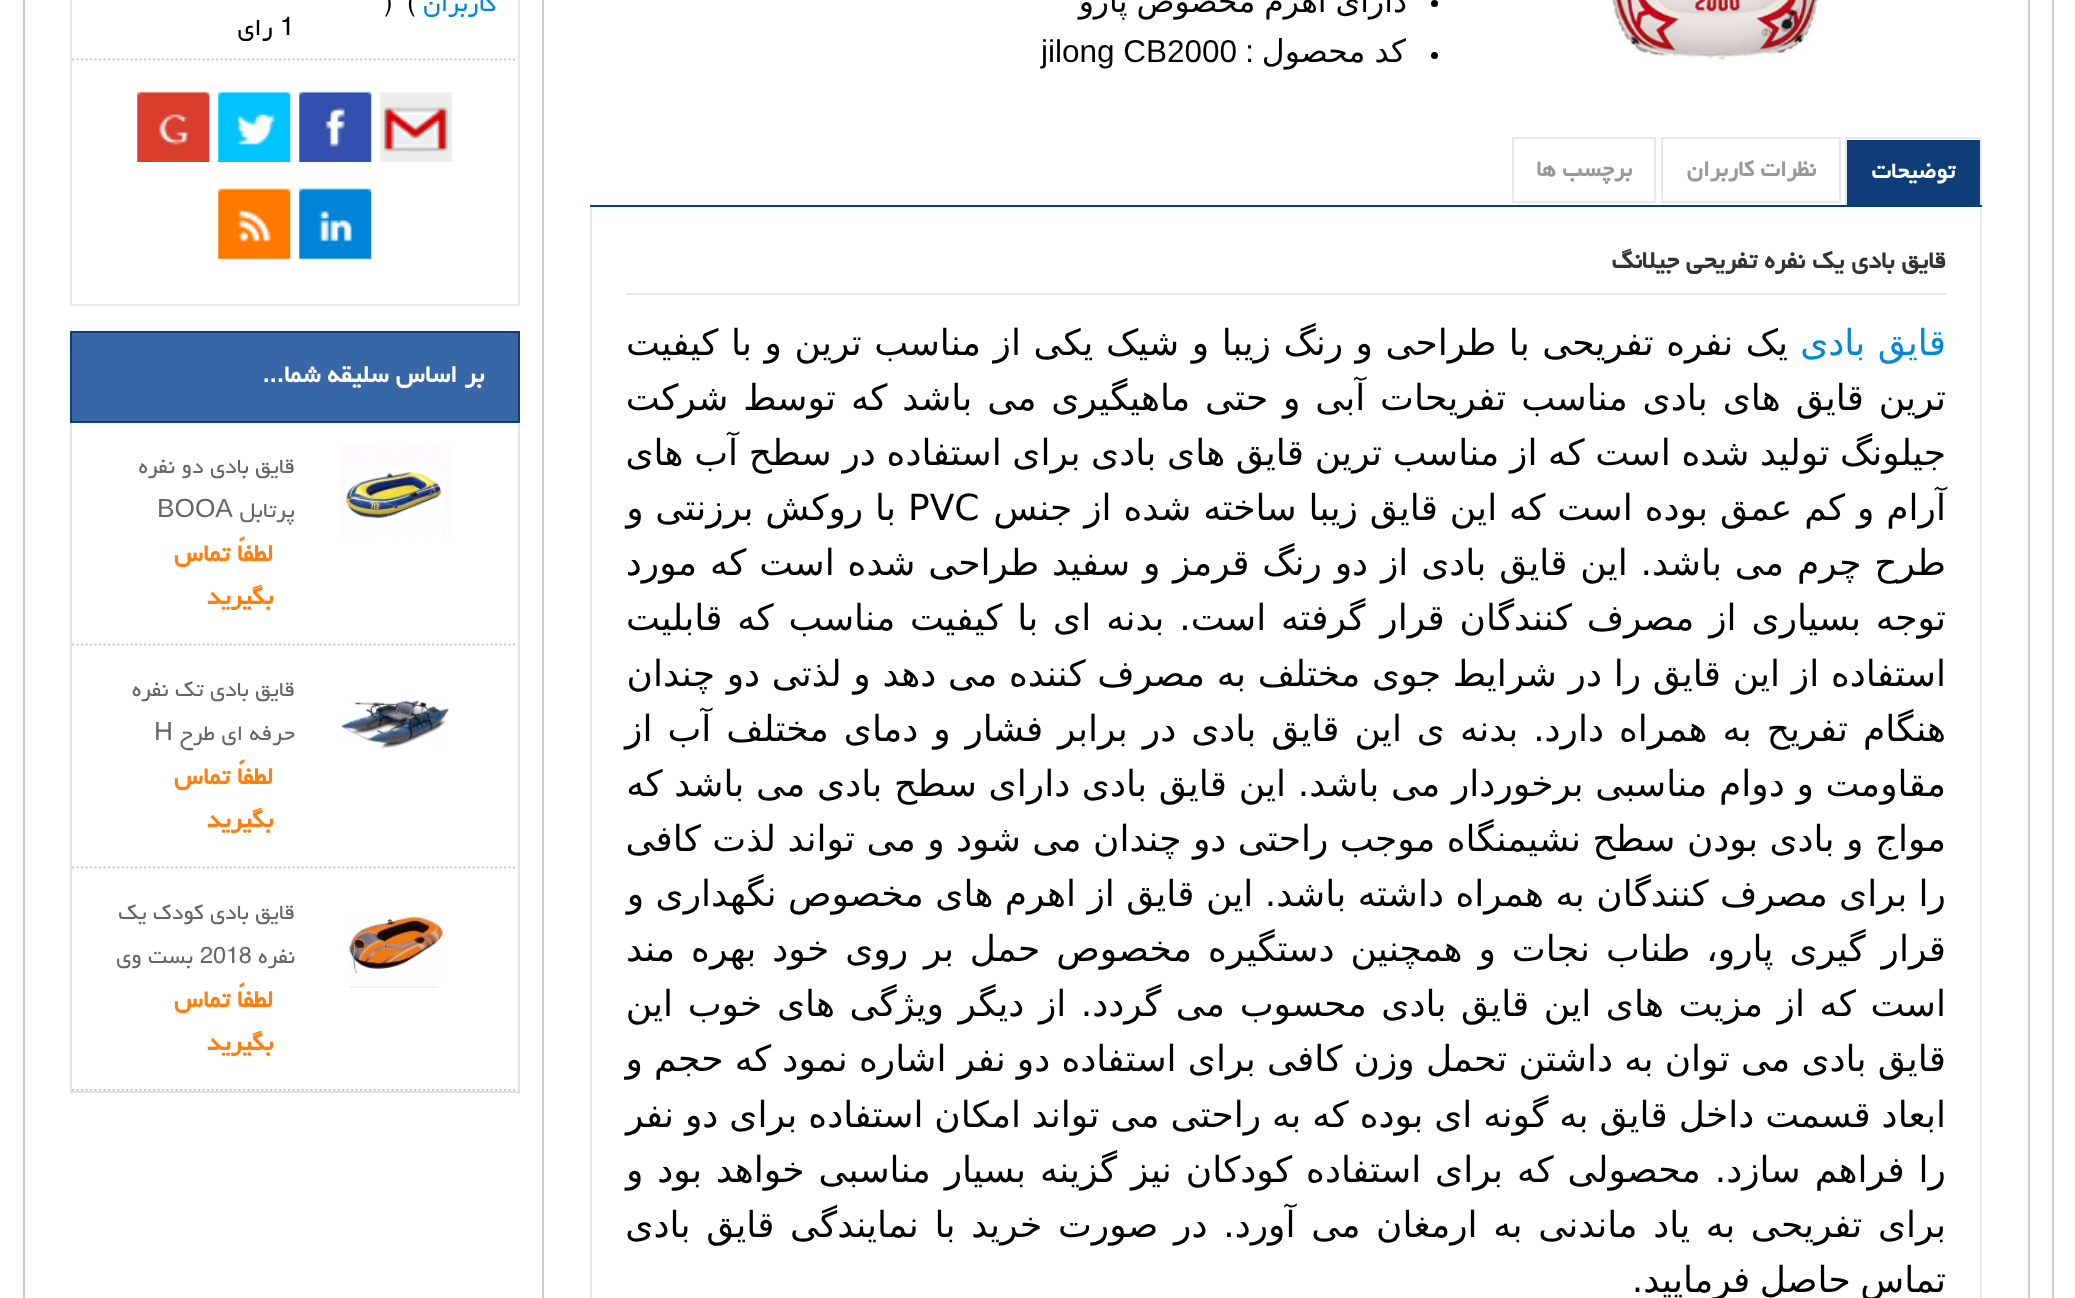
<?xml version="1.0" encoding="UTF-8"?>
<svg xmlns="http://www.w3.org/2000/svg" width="2075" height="1298">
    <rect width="100%" height="100%" fill="#FFFFFF"/>
    <rect x="2052" y="0" width="2" height="1298" fill="#CCCCCC"/>
    <rect x="23" y="0" width="2" height="1298" fill="#CCCCCC"/>
    <rect x="543" y="-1" width="1486" height="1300" fill="none" stroke="#CCCCCC" stroke-width="2"/>
    <image x="1610" y="0" width="211" height="62" href="img_01.png"/>
    <circle cx="1434.5" cy="3.5" r="3.5" fill="#000000"/>
    <text x="1407" y="12" word-spacing="-1" font-family="DejaVu Sans" font-size="31.5" direction="rtl" fill="#000000">دارای اهرم مخصوص پارو</text>
    <circle cx="1434.5" cy="55.5" r="3.5" fill="#000000"/>
    <text x="1406" y="62" word-spacing="-1" font-family="DejaVu Sans" font-size="31.5" direction="rtl" fill="#000000">کد محصول</text>
    <text x="1254" y="62" font-family="Liberation Sans" font-size="31.5" direction="rtl" fill="#000000">:</text>
    <text x="1041" y="62" font-family="Liberation Sans" font-size="31.5" fill="#000000">jilong CB2000</text>
    <rect x="590" y="205" width="1392" height="2" fill="#0F3D78"/>
    <rect x="1846" y="138" width="135" height="66" fill="none" stroke="#E6E8EC" stroke-width="2"/>
    <rect x="1847" y="140" width="133" height="65" fill="#0F3D78"/>
    <text x="1955" y="178" font-family="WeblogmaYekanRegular" font-size="27" font-weight="700" direction="rtl" fill="#FFFFFF">توضیحات</text>
    <rect x="1662" y="138" width="178" height="64" fill="none" stroke="#E6E8EC" stroke-width="2"/>
    <text x="1816" y="176" font-family="WeblogmaYekanRegular" font-size="27" font-weight="700" direction="rtl" fill="#999999">نظرات کاربران</text>
    <rect x="1513" y="138" width="142" height="64" fill="none" stroke="#E6E8EC" stroke-width="2"/>
    <text x="1632" y="176" font-family="WeblogmaYekanRegular" font-size="27" font-weight="700" direction="rtl" fill="#999999">برچسب ها</text>
    <rect x="1980" y="207" width="2" height="1091" fill="#E6E8EC"/>
    <rect x="590" y="207" width="2" height="1091" fill="#E6E8EC"/>
    <rect x="626" y="293" width="1320" height="2" fill="#E6E8EC"/>
    <text x="1946" y="268" font-family="WeblogmaYekanRegular" font-size="29.25" font-weight="700" direction="rtl" fill="#333333">قایق بادی یک نفره تفریحی جیلانگ</text>
    <text x="1946" y="355" word-spacing="1" font-family="DejaVu Sans" font-size="36" direction="rtl" fill="#0087D5">قایق بادی</text>
    <text x="1788" y="355" word-spacing="1.1" font-family="DejaVu Sans" font-size="36" direction="rtl" fill="#000000">یک نفره تفریحی با طراحی و رنگ زیبا و شیک یکی از مناسب ترین و با کیفیت</text>
    <text font-family="DejaVu Sans" font-size="36" direction="rtl" fill="#000000">
        <tspan x="1946" y="410" word-spacing="3.4">ترین قایق های بادی مناسب تفریحات آبی و حتی ماهیگیری می باشد که توسط شرکت</tspan>
        <tspan x="1946" y="465" word-spacing="-0.75">جیلونگ تولید شده است که از مناسب ترین قایق های بادی برای استفاده در سطح آب های</tspan>
        <tspan x="1946" y="520" word-spacing="0.4">آرام و کم عمق بوده است که این قایق زیبا ساخته شده از جنس</tspan>
    </text>
    <text x="908" y="520" font-family="DejaVu Sans" font-size="36" fill="#000000">PVC</text>
    <text x="896" y="520" word-spacing="0.4" font-family="DejaVu Sans" font-size="36" direction="rtl" fill="#000000">با روکش برزنتی و</text>
    <text font-family="DejaVu Sans" font-size="36" direction="rtl" fill="#000000">
        <tspan x="1946" y="575" word-spacing="1.4">طرح چرم می باشد. این قایق بادی از دو رنگ قرمز و سفید طراحی شده است که مورد</tspan>
        <tspan x="1946" y="630" word-spacing="3.4">توجه بسیاری از مصرف کنندگان قرار گرفته است. بدنه ای با کیفیت مناسب که قابلیت</tspan>
        <tspan x="1946" y="686" word-spacing="0.25">استفاده از این قایق را در شرایط جوی مختلف به مصرف کننده می دهد و لذتی دو چندان</tspan>
        <tspan x="1946" y="741" word-spacing="3.5">هنگام تفریح به همراه دارد. بدنه ی این قایق بادی در برابر فشار و دمای مختلف آب از</tspan>
        <tspan x="1946" y="796" word-spacing="0.25">مقاومت و دوام مناسبی برخوردار می باشد. این قایق بادی دارای سطح بادی می باشد که</tspan>
        <tspan x="1946" y="851">مواج و بادی بودن سطح نشیمنگاه موجب راحتی دو چندان می شود و می تواند لذت کافی</tspan>
        <tspan x="1946" y="906">را برای مصرف کنندگان به همراه داشته باشد. این قایق از اهرم های مخصوص نگهداری و</tspan>
        <tspan x="1946" y="961" word-spacing="4.5">قرار گیری پارو، طناب نجات و همچنین دستگیره مخصوص حمل بر روی خود بهره مند</tspan>
        <tspan x="1946" y="1016" word-spacing="3.1">است که از مزیت های این قایق بادی محسوب می گردد. از دیگر ویژگی های خوب این</tspan>
        <tspan x="1946" y="1071" word-spacing="-0.25">قایق بادی می توان به داشتن تحمل وزن کافی برای استفاده دو نفر اشاره نمود که حجم و</tspan>
        <tspan x="1946" y="1127" word-spacing="-0.5">ابعاد قسمت داخل قایق به گونه ای بوده که به راحتی می تواند امکان استفاده برای دو نفر</tspan>
        <tspan x="1946" y="1182" word-spacing="2.5">را فراهم سازد. محصولی که برای استفاده کودکان نیز گزینه بسیار مناسبی خواهد بود و</tspan>
        <tspan x="1946" y="1237" word-spacing="4.25">برای تفریحی به یاد ماندنی به ارمغان می آورد. در صورت خرید با نمایندگی قایق بادی</tspan>
        <tspan x="1946" y="1292" word-spacing="-2">تماس حاصل فرمایید.</tspan>
    </text>
    <rect x="71" y="-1" width="448" height="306" fill="none" stroke="#E6E8EC" stroke-width="2"/>
    <text x="496" y="11" font-family="WeblogmaYekanRegular" font-size="29.25" direction="rtl" fill="#0087D5">کاربران</text>
    <text x="407" y="11" font-family="WeblogmaYekanRegular" font-size="29.25" fill="#000000">(</text>
    <text x="384" y="11" font-family="WeblogmaYekanRegular" font-size="29.25" fill="#000000">)</text>
    <text x="280" y="35" font-family="WeblogmaYekanRegular" font-size="29.25" fill="#000000">1</text>
    <text x="273" y="35" font-family="WeblogmaYekanRegular" font-size="29.25" direction="rtl" fill="#000000">رای</text>
    <path d="M 72 59.5 H 517.5" fill="none" stroke="#CCCCCC" stroke-width="2.2" stroke-dasharray="2.25 2.25"/>
    <image x="380" y="92" width="73" height="70" href="img_02.png"/>
    <image x="299" y="91" width="73" height="71" href="img_03.png"/>
    <image x="218" y="91" width="73" height="71" href="img_04.png"/>
    <image x="137" y="91" width="73" height="71" href="img_05.png"/>
    <image x="299" y="188" width="73" height="71" href="img_06.png"/>
    <image x="218" y="188" width="73" height="71" href="img_07.png"/>
    <rect x="71" y="332" width="448" height="90" fill="#3767A6" stroke="#0F3D78" stroke-width="2"/>
    <text x="484" y="382" font-family="WeblogmaYekanRegular" font-size="29.25" font-weight="700" direction="rtl" fill="#FFFFFF">بر اساس سلیقه شما...</text>
    <rect x="518" y="423" width="2" height="671" fill="#E2E2E2"/>
    <rect x="70" y="1091" width="450" height="2" fill="#E2E2E2"/>
    <rect x="70" y="423" width="2" height="671" fill="#E2E2E2"/>
    <path d="M 72 644.5 H 517.5" fill="none" stroke="#CCCCCC" stroke-width="2.2" stroke-dasharray="2.25 2.25"/>
    <image x="340" y="446" width="110" height="96" href="img_08.png"/>
    <text font-family="WeblogmaYekanRegular" font-size="26.25" direction="rtl" fill="#666666">
        <tspan x="295" y="473">قایق بادی دو نفره</tspan>
        <tspan x="295" y="517">پرتابل</tspan>
    </text>
    <text x="157" y="517" font-family="Liberation Sans" font-size="26.25" fill="#666666">BOOA</text>
    <text font-family="WeblogmaYekanRegular" font-size="29.25" font-weight="700" direction="rtl" fill="#FE7F0D">
        <tspan x="273" y="561">لطفاً تماس</tspan>
        <tspan x="273" y="604">بگیرید</tspan>
    </text>
    <path d="M 72 867.5 H 517.5" fill="none" stroke="#CCCCCC" stroke-width="2.2" stroke-dasharray="2.25 2.25"/>
    <image x="340" y="700" width="109" height="49" href="img_09.png"/>
    <text font-family="WeblogmaYekanRegular" font-size="26.25" direction="rtl" fill="#666666">
        <tspan x="295" y="696">قایق بادی تک نفره</tspan>
        <tspan x="295" y="740">حرفه ای طرح</tspan>
    </text>
    <text x="154" y="740" font-family="Liberation Sans" font-size="26.25" fill="#666666">H</text>
    <text font-family="WeblogmaYekanRegular" font-size="29.25" font-weight="700" direction="rtl" fill="#FE7F0D">
        <tspan x="273" y="784">لطفاً تماس</tspan>
        <tspan x="273" y="827">بگیرید</tspan>
    </text>
    <path d="M 72 1090 H 517.5" fill="none" stroke="#CCCCCC" stroke-width="2.2" stroke-dasharray="2.25 2.25"/>
    <image x="348" y="914" width="97" height="74" href="img_10.png"/>
    <text font-family="WeblogmaYekanRegular" font-size="26.25" direction="rtl" fill="#666666">
        <tspan x="295" y="919">قایق بادی کودک یک</tspan>
        <tspan x="295" y="963">نفره</tspan>
    </text>
    <text x="200" y="963" font-family="WeblogmaYekanRegular" font-size="26.25" fill="#666666">2018</text>
    <text x="193" y="963" font-family="WeblogmaYekanRegular" font-size="26.25" direction="rtl" fill="#666666">بست وی</text>
    <text font-family="WeblogmaYekanRegular" font-size="29.25" font-weight="700" direction="rtl" fill="#FE7F0D">
        <tspan x="273" y="1007">لطفاً تماس</tspan>
        <tspan x="273" y="1050">بگیرید</tspan>
    </text>
</svg>
